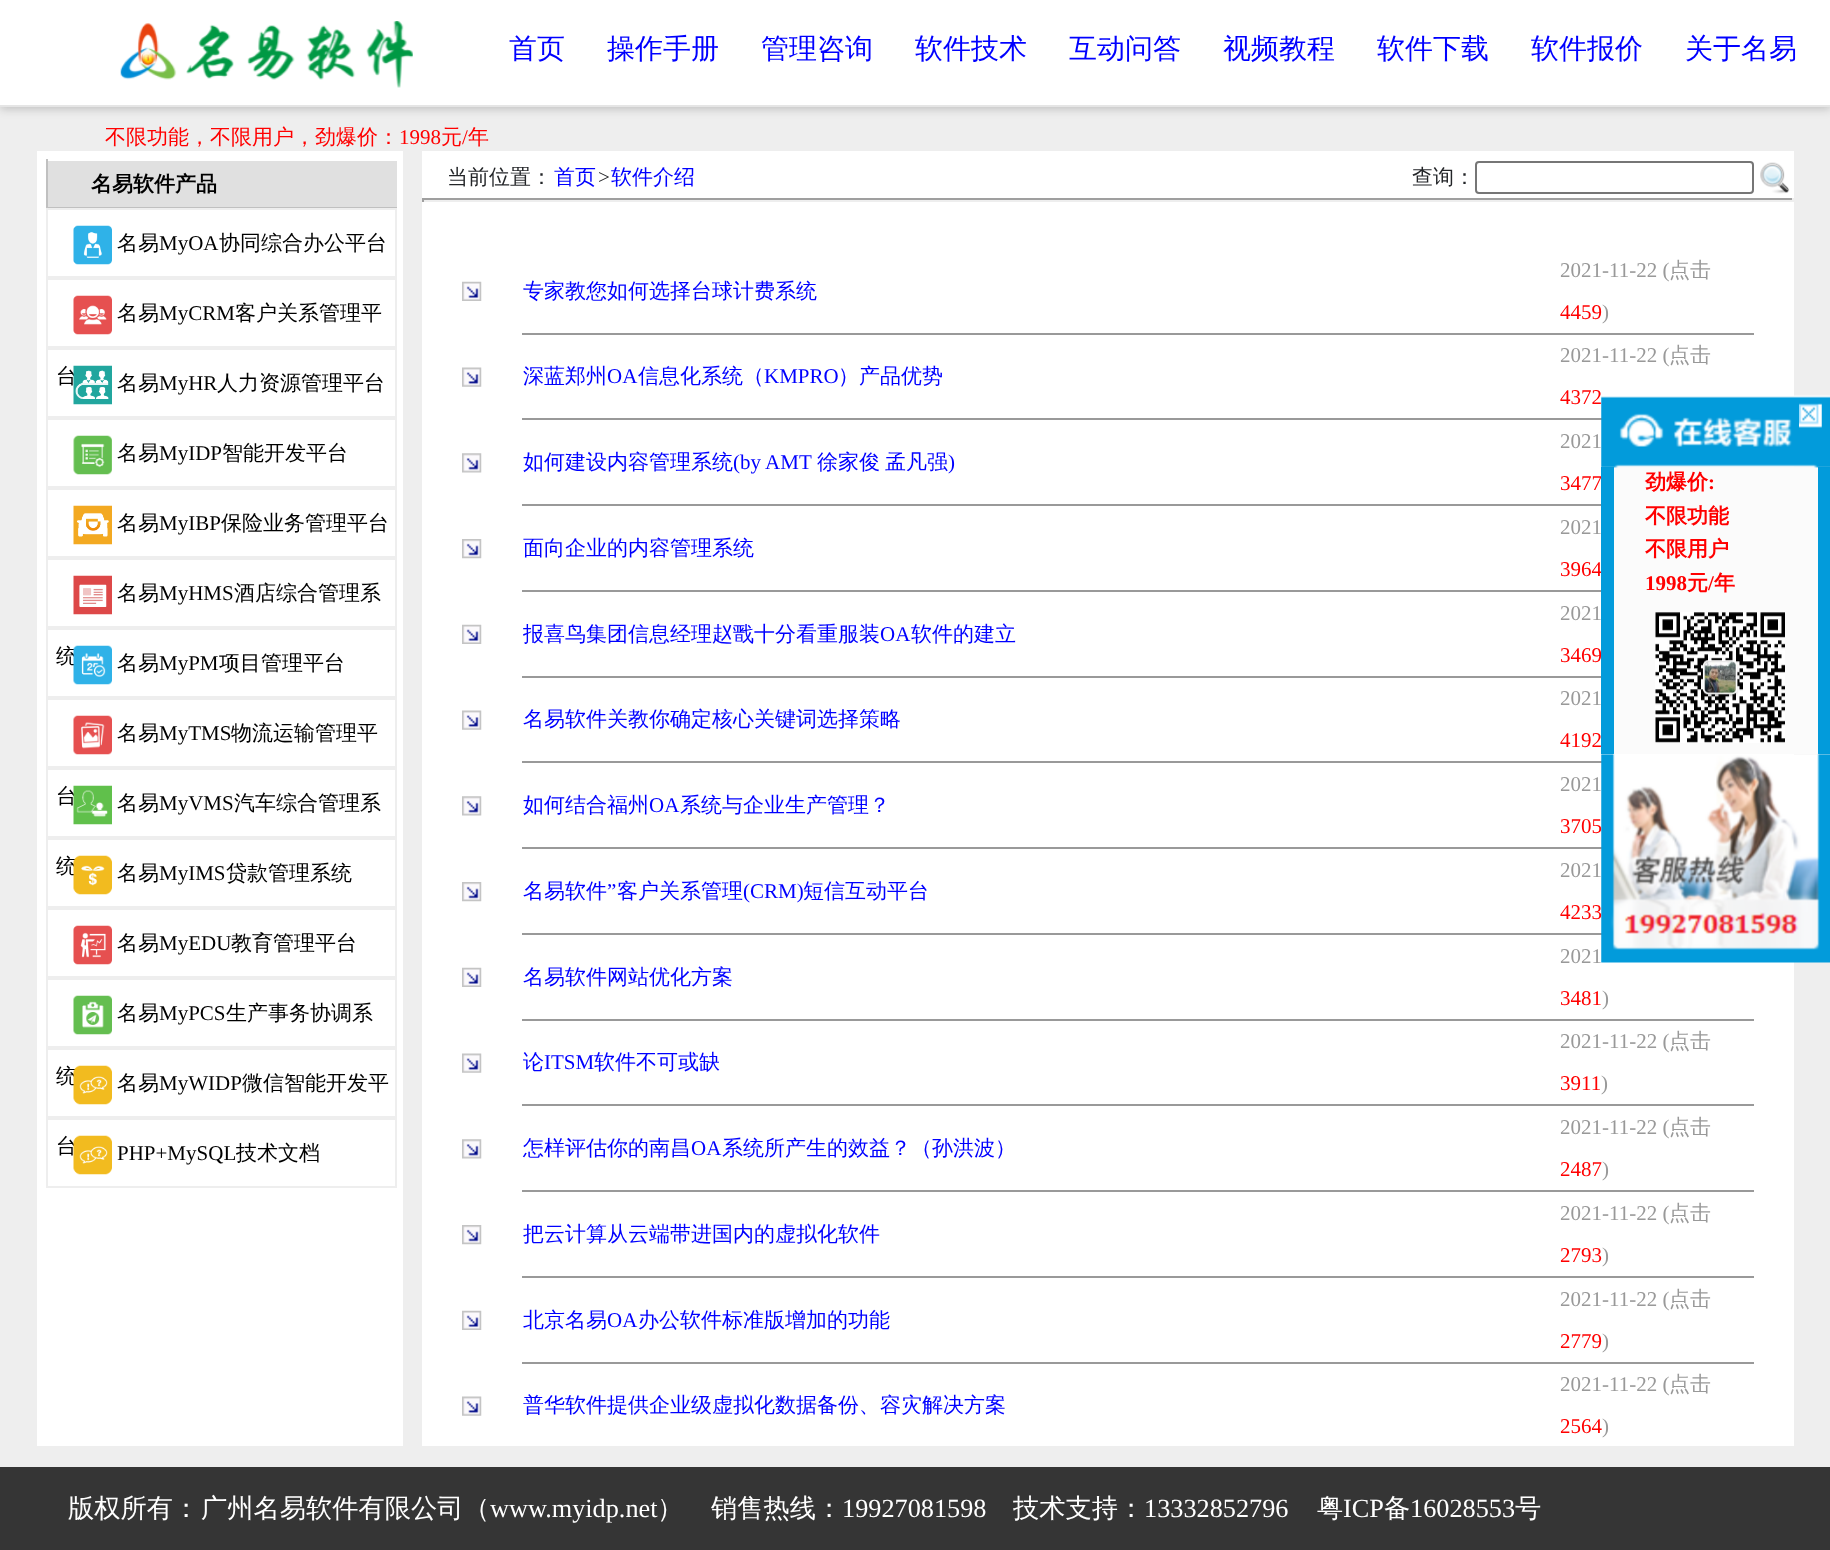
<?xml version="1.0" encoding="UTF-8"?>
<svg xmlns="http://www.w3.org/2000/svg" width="1830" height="1550">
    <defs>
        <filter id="blur1" x="-50%" y="-200%" width="200%" height="500%"><feGaussianBlur stdDeviation="5"/></filter>
    </defs>
    <rect width="100%" height="100%" fill="#EEEEEE"/>
    <rect x="0" y="2" width="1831" height="107" fill="#000000" fill-opacity="0.2" filter="url(#blur1)"/>
    <rect x="0" y="0" width="1830" height="105" fill="#FFFFFF"/>
    <rect x="0" y="105" width="1830" height="2" fill="#E5E5E5"/>
    <image x="120" y="21" width="293" height="67" href="img_01.png"/>
    <text x="509" y="58" font-family="WenQuanYi Zen Hei" font-size="28" font-weight="500" fill="#0000FF">首页</text>
    <text x="607" y="58" font-family="WenQuanYi Zen Hei" font-size="28" font-weight="500" fill="#0000FF">操作手册</text>
    <text x="761" y="58" font-family="WenQuanYi Zen Hei" font-size="28" font-weight="500" fill="#0000FF">管理咨询</text>
    <text x="915" y="58" font-family="WenQuanYi Zen Hei" font-size="28" font-weight="500" fill="#0000FF">软件技术</text>
    <text x="1069" y="58" font-family="WenQuanYi Zen Hei" font-size="28" font-weight="500" fill="#0000FF">互动问答</text>
    <text x="1223" y="58" font-family="WenQuanYi Zen Hei" font-size="28" font-weight="500" fill="#0000FF">视频教程</text>
    <text x="1377" y="58" font-family="WenQuanYi Zen Hei" font-size="28" font-weight="500" fill="#0000FF">软件下载</text>
    <text x="1531" y="58" font-family="WenQuanYi Zen Hei" font-size="28" font-weight="500" fill="#0000FF">软件报价</text>
    <text x="1685" y="58" font-family="WenQuanYi Zen Hei" font-size="28" font-weight="500" fill="#0000FF">关于名易</text>
    <text x="105" y="144" font-family="WenQuanYi Zen Hei" font-size="21" font-weight="500" fill="#FF0000">不限功能，不限用户，劲爆价：</text>
    <text x="399" y="144" font-family="Liberation Serif" font-size="21" fill="#FF0000">1998</text>
    <text x="441" y="144" font-family="WenQuanYi Zen Hei" font-size="21" font-weight="500" fill="#FF0000">元</text>
    <text x="462" y="144" font-family="Liberation Serif" font-size="21" fill="#FF0000">/</text>
    <text x="468" y="144" font-family="WenQuanYi Zen Hei" font-size="21" font-weight="500" fill="#FF0000">年</text>
    <rect x="37" y="151" width="366" height="1295" fill="#FFFFFF"/>
    <rect x="48" y="161" width="349" height="46" fill="#E0E0E0"/>
    <rect x="46" y="207" width="351" height="1" fill="#C0C0C0"/>
    <rect x="46" y="159" width="2" height="49" fill="#C0C0C0"/>
    <text x="91" y="191" font-family="WenQuanYi Zen Hei" font-size="21" font-weight="700" fill="#000000">名易软件产品</text>
    <rect x="47" y="209" width="349" height="68" fill="none" stroke="#EEEEEE" stroke-width="2"/>
    <image x="73" y="225" width="39" height="40" href="img_02.png"/>
    <text x="117" y="250" font-family="WenQuanYi Zen Hei" font-size="21" font-weight="500" fill="#000000">名易</text>
    <text x="159" y="250" font-family="Liberation Serif" font-size="21" fill="#000000">MyOA</text>
    <text x="219" y="250" font-family="WenQuanYi Zen Hei" font-size="21" font-weight="500" fill="#000000">协同综合办公平台</text>
    <rect x="47" y="279" width="349" height="68" fill="none" stroke="#EEEEEE" stroke-width="2"/>
    <image x="73" y="295" width="39" height="40" href="img_03.png"/>
    <text x="117" y="320" font-family="WenQuanYi Zen Hei" font-size="21" font-weight="500" fill="#000000">名易</text>
    <text x="159" y="320" font-family="Liberation Serif" font-size="21" fill="#000000">MyCRM</text>
    <text x="235" y="320" font-family="WenQuanYi Zen Hei" font-size="21" font-weight="500" fill="#000000">客户关系管理平</text>
    <rect x="47" y="349" width="349" height="68" fill="none" stroke="#EEEEEE" stroke-width="2"/>
    <text x="56" y="383" font-family="WenQuanYi Zen Hei" font-size="21" font-weight="500" fill="#000000">台</text>
    <image x="73" y="365" width="39" height="40" href="img_04.png"/>
    <text x="117" y="390" font-family="WenQuanYi Zen Hei" font-size="21" font-weight="500" fill="#000000">名易</text>
    <text x="159" y="390" font-family="Liberation Serif" font-size="21" fill="#000000">MyHR</text>
    <text x="217" y="390" font-family="WenQuanYi Zen Hei" font-size="21" font-weight="500" fill="#000000">人力资源管理平台</text>
    <rect x="47" y="419" width="349" height="68" fill="none" stroke="#EEEEEE" stroke-width="2"/>
    <image x="73" y="435" width="39" height="40" href="img_05.png"/>
    <text x="117" y="460" font-family="WenQuanYi Zen Hei" font-size="21" font-weight="500" fill="#000000">名易</text>
    <text x="159" y="460" font-family="Liberation Serif" font-size="21" fill="#000000">MyIDP</text>
    <text x="222" y="460" font-family="WenQuanYi Zen Hei" font-size="21" font-weight="500" fill="#000000">智能开发平台</text>
    <rect x="47" y="489" width="349" height="68" fill="none" stroke="#EEEEEE" stroke-width="2"/>
    <image x="73" y="505" width="39" height="40" href="img_06.png"/>
    <text x="117" y="530" font-family="WenQuanYi Zen Hei" font-size="21" font-weight="500" fill="#000000">名易</text>
    <text x="159" y="530" font-family="Liberation Serif" font-size="21" fill="#000000">MyIBP</text>
    <text x="221" y="530" font-family="WenQuanYi Zen Hei" font-size="21" font-weight="500" fill="#000000">保险业务管理平台</text>
    <rect x="47" y="559" width="349" height="68" fill="none" stroke="#EEEEEE" stroke-width="2"/>
    <image x="73" y="575" width="39" height="40" href="img_07.png"/>
    <text x="117" y="600" font-family="WenQuanYi Zen Hei" font-size="21" font-weight="500" fill="#000000">名易</text>
    <text x="159" y="600" font-family="Liberation Serif" font-size="21" fill="#000000">MyHMS</text>
    <text x="234" y="600" font-family="WenQuanYi Zen Hei" font-size="21" font-weight="500" fill="#000000">酒店综合管理系</text>
    <rect x="47" y="629" width="349" height="68" fill="none" stroke="#EEEEEE" stroke-width="2"/>
    <text x="56" y="663" font-family="WenQuanYi Zen Hei" font-size="21" font-weight="500" fill="#000000">统</text>
    <image x="73" y="645" width="39" height="40" href="img_08.png"/>
    <text x="117" y="670" font-family="WenQuanYi Zen Hei" font-size="21" font-weight="500" fill="#000000">名易</text>
    <text x="159" y="670" font-family="Liberation Serif" font-size="21" fill="#000000">MyPM</text>
    <text x="219" y="670" font-family="WenQuanYi Zen Hei" font-size="21" font-weight="500" fill="#000000">项目管理平台</text>
    <rect x="47" y="699" width="349" height="68" fill="none" stroke="#EEEEEE" stroke-width="2"/>
    <image x="73" y="715" width="39" height="40" href="img_09.png"/>
    <text x="117" y="740" font-family="WenQuanYi Zen Hei" font-size="21" font-weight="500" fill="#000000">名易</text>
    <text x="159" y="740" font-family="Liberation Serif" font-size="21" fill="#000000">MyTMS</text>
    <text x="231" y="740" font-family="WenQuanYi Zen Hei" font-size="21" font-weight="500" fill="#000000">物流运输管理平</text>
    <rect x="47" y="769" width="349" height="68" fill="none" stroke="#EEEEEE" stroke-width="2"/>
    <text x="56" y="803" font-family="WenQuanYi Zen Hei" font-size="21" font-weight="500" fill="#000000">台</text>
    <image x="73" y="785" width="39" height="40" href="img_10.png"/>
    <text x="117" y="810" font-family="WenQuanYi Zen Hei" font-size="21" font-weight="500" fill="#000000">名易</text>
    <text x="159" y="810" font-family="Liberation Serif" font-size="21" fill="#000000">MyVMS</text>
    <text x="234" y="810" font-family="WenQuanYi Zen Hei" font-size="21" font-weight="500" fill="#000000">汽车综合管理系</text>
    <rect x="47" y="839" width="349" height="68" fill="none" stroke="#EEEEEE" stroke-width="2"/>
    <text x="56" y="873" font-family="WenQuanYi Zen Hei" font-size="21" font-weight="500" fill="#000000">统</text>
    <image x="73" y="855" width="39" height="40" href="img_11.png"/>
    <text x="117" y="880" font-family="WenQuanYi Zen Hei" font-size="21" font-weight="500" fill="#000000">名易</text>
    <text x="159" y="880" font-family="Liberation Serif" font-size="21" fill="#000000">MyIMS</text>
    <text x="226" y="880" font-family="WenQuanYi Zen Hei" font-size="21" font-weight="500" fill="#000000">贷款管理系统</text>
    <rect x="47" y="909" width="349" height="68" fill="none" stroke="#EEEEEE" stroke-width="2"/>
    <image x="73" y="925" width="39" height="40" href="img_12.png"/>
    <text x="117" y="950" font-family="WenQuanYi Zen Hei" font-size="21" font-weight="500" fill="#000000">名易</text>
    <text x="159" y="950" font-family="Liberation Serif" font-size="21" fill="#000000">MyEDU</text>
    <text x="231" y="950" font-family="WenQuanYi Zen Hei" font-size="21" font-weight="500" fill="#000000">教育管理平台</text>
    <rect x="47" y="979" width="349" height="68" fill="none" stroke="#EEEEEE" stroke-width="2"/>
    <image x="73" y="995" width="39" height="40" href="img_13.png"/>
    <text x="117" y="1020" font-family="WenQuanYi Zen Hei" font-size="21" font-weight="500" fill="#000000">名易</text>
    <text x="159" y="1020" font-family="Liberation Serif" font-size="21" fill="#000000">MyPCS</text>
    <text x="226" y="1020" font-family="WenQuanYi Zen Hei" font-size="21" font-weight="500" fill="#000000">生产事务协调系</text>
    <rect x="47" y="1049" width="349" height="68" fill="none" stroke="#EEEEEE" stroke-width="2"/>
    <text x="56" y="1083" font-family="WenQuanYi Zen Hei" font-size="21" font-weight="500" fill="#000000">统</text>
    <image x="73" y="1065" width="39" height="40" href="img_14.png"/>
    <text x="117" y="1090" font-family="WenQuanYi Zen Hei" font-size="21" font-weight="500" fill="#000000">名易</text>
    <text x="159" y="1090" font-family="Liberation Serif" font-size="21" fill="#000000">MyWIDP</text>
    <text x="242" y="1090" font-family="WenQuanYi Zen Hei" font-size="21" font-weight="500" fill="#000000">微信智能开发平</text>
    <rect x="47" y="1119" width="349" height="68" fill="none" stroke="#EEEEEE" stroke-width="2"/>
    <text x="56" y="1153" font-family="WenQuanYi Zen Hei" font-size="21" font-weight="500" fill="#000000">台</text>
    <image x="73" y="1135" width="39" height="40" href="img_15.png"/>
    <text x="117" y="1160" font-family="Liberation Serif" font-size="21" fill="#000000">PHP+MySQL</text>
    <text x="236" y="1160" font-family="WenQuanYi Zen Hei" font-size="21" font-weight="500" fill="#000000">技术文档</text>
    <rect x="422" y="151" width="1372" height="1295" fill="#FFFFFF"/>
    <text x="447" y="184" font-family="WenQuanYi Zen Hei" font-size="21" font-weight="500" fill="#232528">当前位置：</text>
    <text x="554" y="184" font-family="WenQuanYi Zen Hei" font-size="21" font-weight="500" fill="#0000FF">首页</text>
    <text x="598" y="184" font-family="Liberation Serif" font-size="21" fill="#232528">&gt;</text>
    <text x="611" y="184" font-family="WenQuanYi Zen Hei" font-size="21" font-weight="500" fill="#0000FF">软件介绍</text>
    <text x="1412" y="184" font-family="WenQuanYi Zen Hei" font-size="21" font-weight="500" fill="#232528">查询：</text>
    <rect x="1476" y="162" width="277" height="31" rx="3" fill="none" stroke="#767676" stroke-width="2"/>
    <image x="1760" y="162" width="30" height="32" href="img_16.png"/>
    <rect x="422" y="198" width="1372" height="2" fill="#9F9F9F"/>
    <rect x="1792" y="198" width="2" height="4" fill="#EEEEEE"/>
    <rect x="422" y="200" width="1372" height="2" fill="#EEEEEE"/>
    <rect x="422" y="198" width="2" height="4" fill="#9F9F9F"/>
    <image x="462" y="281" width="20" height="20" href="img_17.png"/>
    <text x="523" y="298" font-family="WenQuanYi Zen Hei" font-size="21" font-weight="500" fill="#0000FF">专家教您如何选择台球计费系统</text>
    <rect x="522" y="333" width="1232" height="2" fill="#999999"/>
    <text x="1560" y="277" font-family="Liberation Serif" font-size="21" fill="#999999">2021-11-22 (</text>
    <text x="1669" y="277" font-family="WenQuanYi Zen Hei" font-size="21" font-weight="500" fill="#999999">点击</text>
    <text x="1560" y="319" font-family="Liberation Serif" font-size="21" fill="#FF0000">4459</text>
    <text x="1602" y="319" font-family="Liberation Serif" font-size="21" fill="#999999">)</text>
    <image x="462" y="367" width="20" height="20" href="img_18.png"/>
    <text x="523" y="383" font-family="WenQuanYi Zen Hei" font-size="21" font-weight="500" fill="#0000FF">深蓝郑州</text>
    <text x="607" y="383" font-family="Liberation Serif" font-size="21" fill="#0000FF">OA</text>
    <text x="638" y="383" font-family="WenQuanYi Zen Hei" font-size="21" font-weight="500" fill="#0000FF">信息化系统（</text>
    <text x="764" y="383" font-family="Liberation Serif" font-size="21" fill="#0000FF">KMPRO</text>
    <text x="838" y="383" font-family="WenQuanYi Zen Hei" font-size="21" font-weight="500" fill="#0000FF">）产品优势</text>
    <rect x="522" y="418" width="1080" height="2" fill="#999999"/>
    <text x="1560" y="362" font-family="Liberation Serif" font-size="21" fill="#999999">2021-11-22 (</text>
    <text x="1669" y="362" font-family="WenQuanYi Zen Hei" font-size="21" font-weight="500" fill="#999999">点击</text>
    <text x="1560" y="404" font-family="Liberation Serif" font-size="21" fill="#FF0000">4372</text>
    <image x="462" y="453" width="20" height="20" href="img_19.png"/>
    <text x="523" y="469" font-family="WenQuanYi Zen Hei" font-size="21" font-weight="500" fill="#0000FF">如何建设内容管理系统</text>
    <text x="733" y="469" font-family="Liberation Serif" font-size="21" fill="#0000FF">(by AMT</text>
    <text x="817" y="469" font-family="WenQuanYi Zen Hei" font-size="21" font-weight="500" fill="#0000FF">徐家俊</text>
    <text x="885" y="469" font-family="WenQuanYi Zen Hei" font-size="21" font-weight="500" fill="#0000FF">孟凡强</text>
    <text x="948" y="469" font-family="Liberation Serif" font-size="21" fill="#0000FF">)</text>
    <rect x="522" y="504" width="1079" height="2" fill="#999999"/>
    <text x="1560" y="448" font-family="Liberation Serif" font-size="21" fill="#999999">2021</text>
    <text x="1560" y="490" font-family="Liberation Serif" font-size="21" fill="#FF0000">3477</text>
    <image x="462" y="539" width="20" height="20" href="img_20.png"/>
    <text x="523" y="555" font-family="WenQuanYi Zen Hei" font-size="21" font-weight="500" fill="#0000FF">面向企业的内容管理系统</text>
    <rect x="522" y="590" width="1079" height="2" fill="#999999"/>
    <text x="1560" y="534" font-family="Liberation Serif" font-size="21" fill="#999999">2021</text>
    <text x="1560" y="576" font-family="Liberation Serif" font-size="21" fill="#FF0000">3964</text>
    <image x="462" y="624" width="20" height="20" href="img_17.png"/>
    <text x="523" y="641" font-family="WenQuanYi Zen Hei" font-size="21" font-weight="500" fill="#0000FF">报喜鸟集团信息经理赵戬十分看重服装</text>
    <text x="880" y="641" font-family="Liberation Serif" font-size="21" fill="#0000FF">OA</text>
    <text x="911" y="641" font-family="WenQuanYi Zen Hei" font-size="21" font-weight="500" fill="#0000FF">软件的建立</text>
    <rect x="522" y="676" width="1079" height="2" fill="#999999"/>
    <text x="1560" y="620" font-family="Liberation Serif" font-size="21" fill="#999999">2021</text>
    <text x="1560" y="662" font-family="Liberation Serif" font-size="21" fill="#FF0000">3469</text>
    <image x="462" y="710" width="20" height="20" href="img_18.png"/>
    <text x="523" y="726" font-family="WenQuanYi Zen Hei" font-size="21" font-weight="500" fill="#0000FF">名易软件关教你确定核心关键词选择策略</text>
    <rect x="522" y="761" width="1080" height="2" fill="#999999"/>
    <text x="1560" y="705" font-family="Liberation Serif" font-size="21" fill="#999999">2021</text>
    <text x="1560" y="747" font-family="Liberation Serif" font-size="21" fill="#FF0000">4192</text>
    <image x="462" y="796" width="20" height="20" href="img_19.png"/>
    <text x="523" y="812" font-family="WenQuanYi Zen Hei" font-size="21" font-weight="500" fill="#0000FF">如何结合福州</text>
    <text x="649" y="812" font-family="Liberation Serif" font-size="21" fill="#0000FF">OA</text>
    <text x="680" y="812" font-family="WenQuanYi Zen Hei" font-size="21" font-weight="500" fill="#0000FF">系统与企业生产管理？</text>
    <rect x="522" y="847" width="1080" height="2" fill="#999999"/>
    <text x="1560" y="791" font-family="Liberation Serif" font-size="21" fill="#999999">2021</text>
    <text x="1560" y="833" font-family="Liberation Serif" font-size="21" fill="#FF0000">3705</text>
    <image x="462" y="882" width="20" height="20" href="img_20.png"/>
    <text x="523" y="898" font-family="WenQuanYi Zen Hei" font-size="21" font-weight="500" fill="#0000FF">名易软件</text>
    <text x="607" y="898" font-family="Liberation Serif" font-size="21" fill="#0000FF">”</text>
    <text x="617" y="898" font-family="WenQuanYi Zen Hei" font-size="21" font-weight="500" fill="#0000FF">客户关系管理</text>
    <text x="743" y="898" font-family="Liberation Serif" font-size="21" fill="#0000FF">(CRM)</text>
    <text x="803" y="898" font-family="WenQuanYi Zen Hei" font-size="21" font-weight="500" fill="#0000FF">短信互动平台</text>
    <rect x="522" y="933" width="1080" height="2" fill="#999999"/>
    <text x="1560" y="877" font-family="Liberation Serif" font-size="21" fill="#999999">2021</text>
    <text x="1560" y="919" font-family="Liberation Serif" font-size="21" fill="#FF0000">4233</text>
    <image x="462" y="967" width="20" height="20" href="img_17.png"/>
    <text x="523" y="984" font-family="WenQuanYi Zen Hei" font-size="21" font-weight="500" fill="#0000FF">名易软件网站优化方案</text>
    <rect x="522" y="1019" width="1232" height="2" fill="#999999"/>
    <text x="1560" y="963" font-family="Liberation Serif" font-size="21" fill="#999999">2021</text>
    <text x="1560" y="1005" font-family="Liberation Serif" font-size="21" fill="#FF0000">3481</text>
    <text x="1602" y="1005" font-family="Liberation Serif" font-size="21" fill="#999999">)</text>
    <image x="462" y="1053" width="20" height="20" href="img_18.png"/>
    <text x="523" y="1069" font-family="WenQuanYi Zen Hei" font-size="21" font-weight="500" fill="#0000FF">论</text>
    <text x="544" y="1069" font-family="Liberation Serif" font-size="21" fill="#0000FF">ITSM</text>
    <text x="594" y="1069" font-family="WenQuanYi Zen Hei" font-size="21" font-weight="500" fill="#0000FF">软件不可或缺</text>
    <rect x="522" y="1104" width="1232" height="2" fill="#999999"/>
    <text x="1560" y="1048" font-family="Liberation Serif" font-size="21" fill="#999999">2021-11-22 (</text>
    <text x="1669" y="1048" font-family="WenQuanYi Zen Hei" font-size="21" font-weight="500" fill="#999999">点击</text>
    <text x="1560" y="1090" font-family="Liberation Serif" font-size="21" fill="#FF0000">3911</text>
    <text x="1601" y="1090" font-family="Liberation Serif" font-size="21" fill="#999999">)</text>
    <image x="462" y="1139" width="20" height="20" href="img_19.png"/>
    <text x="523" y="1155" font-family="WenQuanYi Zen Hei" font-size="21" font-weight="500" fill="#0000FF">怎样评估你的南昌</text>
    <text x="691" y="1155" font-family="Liberation Serif" font-size="21" fill="#0000FF">OA</text>
    <text x="722" y="1155" font-family="WenQuanYi Zen Hei" font-size="21" font-weight="500" fill="#0000FF">系统所产生的效益？（孙洪波）</text>
    <rect x="522" y="1190" width="1232" height="2" fill="#999999"/>
    <text x="1560" y="1134" font-family="Liberation Serif" font-size="21" fill="#999999">2021-11-22 (</text>
    <text x="1669" y="1134" font-family="WenQuanYi Zen Hei" font-size="21" font-weight="500" fill="#999999">点击</text>
    <text x="1560" y="1176" font-family="Liberation Serif" font-size="21" fill="#FF0000">2487</text>
    <text x="1602" y="1176" font-family="Liberation Serif" font-size="21" fill="#999999">)</text>
    <image x="462" y="1225" width="20" height="20" href="img_20.png"/>
    <text x="523" y="1241" font-family="WenQuanYi Zen Hei" font-size="21" font-weight="500" fill="#0000FF">把云计算从云端带进国内的虚拟化软件</text>
    <rect x="522" y="1276" width="1232" height="2" fill="#999999"/>
    <text x="1560" y="1220" font-family="Liberation Serif" font-size="21" fill="#999999">2021-11-22 (</text>
    <text x="1669" y="1220" font-family="WenQuanYi Zen Hei" font-size="21" font-weight="500" fill="#999999">点击</text>
    <text x="1560" y="1262" font-family="Liberation Serif" font-size="21" fill="#FF0000">2793</text>
    <text x="1602" y="1262" font-family="Liberation Serif" font-size="21" fill="#999999">)</text>
    <image x="462" y="1310" width="20" height="20" href="img_17.png"/>
    <text x="523" y="1327" font-family="WenQuanYi Zen Hei" font-size="21" font-weight="500" fill="#0000FF">北京名易</text>
    <text x="607" y="1327" font-family="Liberation Serif" font-size="21" fill="#0000FF">OA</text>
    <text x="638" y="1327" font-family="WenQuanYi Zen Hei" font-size="21" font-weight="500" fill="#0000FF">办公软件标准版增加的功能</text>
    <rect x="522" y="1362" width="1232" height="2" fill="#999999"/>
    <text x="1560" y="1306" font-family="Liberation Serif" font-size="21" fill="#999999">2021-11-22 (</text>
    <text x="1669" y="1306" font-family="WenQuanYi Zen Hei" font-size="21" font-weight="500" fill="#999999">点击</text>
    <text x="1560" y="1348" font-family="Liberation Serif" font-size="21" fill="#FF0000">2779</text>
    <text x="1602" y="1348" font-family="Liberation Serif" font-size="21" fill="#999999">)</text>
    <image x="462" y="1396" width="20" height="20" href="img_18.png"/>
    <text x="523" y="1412" font-family="WenQuanYi Zen Hei" font-size="21" font-weight="500" fill="#0000FF">普华软件提供企业级虚拟化数据备份、容灾解决方案</text>
    <text x="1560" y="1391" font-family="Liberation Serif" font-size="21" fill="#999999">2021-11-22 (</text>
    <text x="1669" y="1391" font-family="WenQuanYi Zen Hei" font-size="21" font-weight="500" fill="#999999">点击</text>
    <text x="1560" y="1433" font-family="Liberation Serif" font-size="21" fill="#FF0000">2564</text>
    <text x="1602" y="1433" font-family="Liberation Serif" font-size="21" fill="#999999">)</text>
    <rect x="1614" y="467" width="204" height="287" fill="#FBFBFB"/>
    <rect x="1818" y="467" width="12" height="287" fill="#029BDB"/>
    <rect x="1601" y="467" width="13" height="287" fill="#029BDB"/>
    <image x="1601" y="394" width="229" height="74" href="img_21.png"/>
    <image x="1799" y="403" width="23" height="25" href="img_22.png"/>
    <text x="1645" y="489" font-family="WenQuanYi Zen Hei" font-size="21" font-weight="700" fill="#FF0000">劲爆价</text>
    <text x="1708" y="489" font-family="Liberation Serif" font-size="21" font-weight="700" fill="#FF0000">:</text>
    <text font-family="WenQuanYi Zen Hei" font-size="21" font-weight="700" fill="#FF0000">
        <tspan x="1645" y="523">不限功能</tspan>
        <tspan x="1645" y="556">不限用户</tspan>
    </text>
    <text x="1645" y="590" font-family="Liberation Serif" font-size="21" font-weight="700" fill="#FF0000">1998</text>
    <text x="1687" y="590" font-family="WenQuanYi Zen Hei" font-size="21" font-weight="700" fill="#FF0000">元</text>
    <text x="1708" y="590" font-family="Liberation Serif" font-size="21" font-weight="700" fill="#FF0000">/</text>
    <text x="1714" y="590" font-family="WenQuanYi Zen Hei" font-size="21" font-weight="700" fill="#FF0000">年</text>
    <image x="1655" y="612" width="130" height="131" href="img_23.png"/>
    <image x="1601" y="753" width="229" height="210" href="img_24.png"/>
    <rect x="0" y="1467" width="1830" height="83" fill="#353535"/>
    <text x="68" y="1517" font-family="WenQuanYi Zen Hei" font-size="26.25" font-weight="500" fill="#FFFFFF">版权所有：</text>
    <text x="201" y="1517" font-family="WenQuanYi Zen Hei" font-size="26.25" font-weight="500" fill="#FFFFFF">广州名易软件有限公司（</text>
    <text x="490" y="1517" font-family="Liberation Serif" font-size="26.25" fill="#FFFFFF">www.myidp.net</text>
    <text x="657" y="1517" font-family="WenQuanYi Zen Hei" font-size="26.25" font-weight="500" fill="#FFFFFF">）</text>
    <text x="711" y="1517" font-family="WenQuanYi Zen Hei" font-size="26.25" font-weight="500" fill="#FFFFFF">销售热线：</text>
    <text x="842" y="1517" font-family="Liberation Serif" font-size="26.25" fill="#FFFFFF">19927081598</text>
    <text x="1013" y="1517" font-family="WenQuanYi Zen Hei" font-size="26.25" font-weight="500" fill="#FFFFFF">技术支持：</text>
    <text x="1144" y="1517" font-family="Liberation Serif" font-size="26.25" fill="#FFFFFF">13332852796</text>
    <text x="1317" y="1517" font-family="WenQuanYi Zen Hei" font-size="26.25" font-weight="500" fill="#FFFFFF">粤</text>
    <text x="1343" y="1517" font-family="Liberation Serif" font-size="26.25" fill="#FFFFFF">ICP</text>
    <text x="1384" y="1517" font-family="WenQuanYi Zen Hei" font-size="26.25" font-weight="500" fill="#FFFFFF">备</text>
    <text x="1410" y="1517" font-family="Liberation Serif" font-size="26.25" fill="#FFFFFF">16028553</text>
    <text x="1515" y="1517" font-family="WenQuanYi Zen Hei" font-size="26.25" font-weight="500" fill="#FFFFFF">号</text>
</svg>
